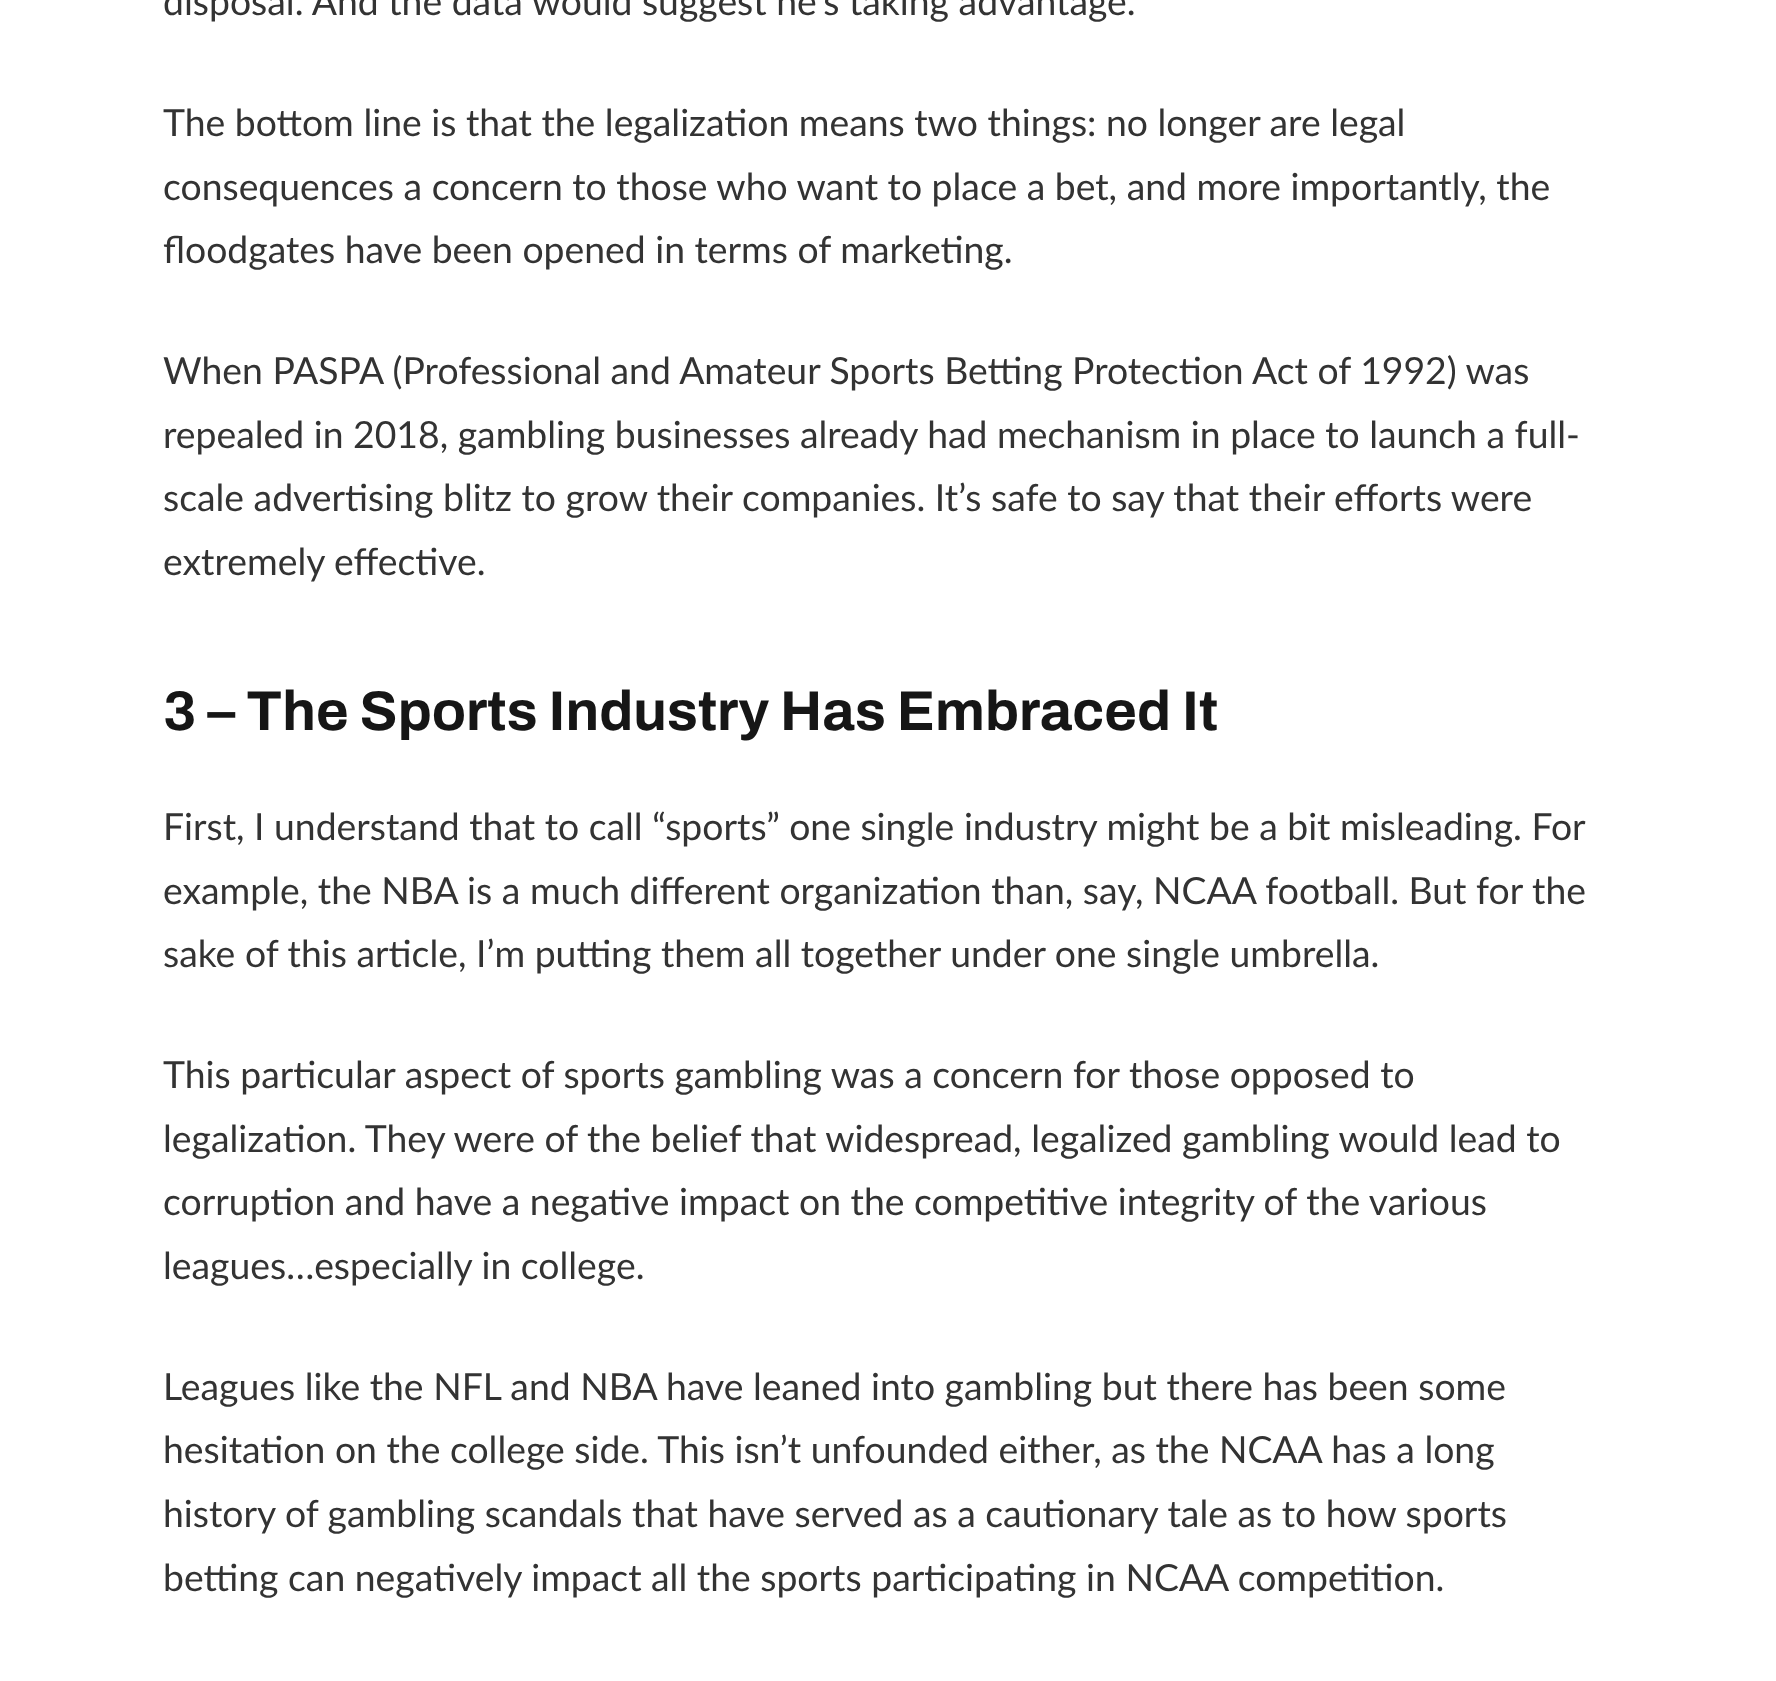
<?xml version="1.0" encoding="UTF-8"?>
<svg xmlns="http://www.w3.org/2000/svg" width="1776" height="1681">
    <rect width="100%" height="100%" fill="#FFFFFF"/>
    <text x="163" y="15" font-family="Lato" font-size="37.35" fill="#333333">disposal. And the data would suggest he’s taking advantage.</text>
    <text font-family="Lato" font-size="37.35" fill="#333333">
        <tspan x="163" y="136">The bottom line is that the legalization means two things: no longer are legal</tspan>
        <tspan x="163" y="200">consequences a concern to those who want to place a bet, and more importantly, the</tspan>
        <tspan x="163" y="263">floodgates have been opened in terms of marketing.</tspan>
    </text>
    <text font-family="Lato" font-size="37.35" fill="#333333">
        <tspan x="163" y="384">When PASPA (Professional and Amateur Sports Betting Protection Act of 1992) was</tspan>
        <tspan x="163" y="448">repealed in 2018, gambling businesses already had mechanism in place to launch a full-</tspan>
        <tspan x="163" y="511">scale advertising blitz to grow their companies. It’s safe to say that their efforts were</tspan>
        <tspan x="163" y="575">extremely effective.</tspan>
    </text>
    <text x="163" y="730" font-family="Archivo" font-size="56" font-weight="700" fill="#161616">3 – The Sports Industry Has Embraced It</text>
    <text font-family="Lato" font-size="37.35" fill="#333333">
        <tspan x="163" y="840">First, I understand that to call “sports” one single industry might be a bit misleading. For</tspan>
        <tspan x="163" y="904">example, the NBA is a much different organization than, say, NCAA football. But for the</tspan>
        <tspan x="163" y="967">sake of this article, I’m putting them all together under one single umbrella.</tspan>
    </text>
    <text font-family="Lato" font-size="37.35" fill="#333333">
        <tspan x="163" y="1088">This particular aspect of sports gambling was a concern for those opposed to</tspan>
        <tspan x="163" y="1152">legalization. They were of the belief that widespread, legalized gambling would lead to</tspan>
        <tspan x="163" y="1215">corruption and have a negative impact on the competitive integrity of the various</tspan>
        <tspan x="163" y="1279">leagues…especially in college.</tspan>
    </text>
    <text font-family="Lato" font-size="37.35" fill="#333333">
        <tspan x="163" y="1400">Leagues like the NFL and NBA have leaned into gambling but there has been some</tspan>
        <tspan x="163" y="1463">hesitation on the college side. This isn’t unfounded either, as the NCAA has a long</tspan>
        <tspan x="163" y="1527">history of gambling scandals that have served as a cautionary tale as to how sports</tspan>
        <tspan x="163" y="1591">betting can negatively impact all the sports participating in NCAA competition.</tspan>
    </text>
</svg>
